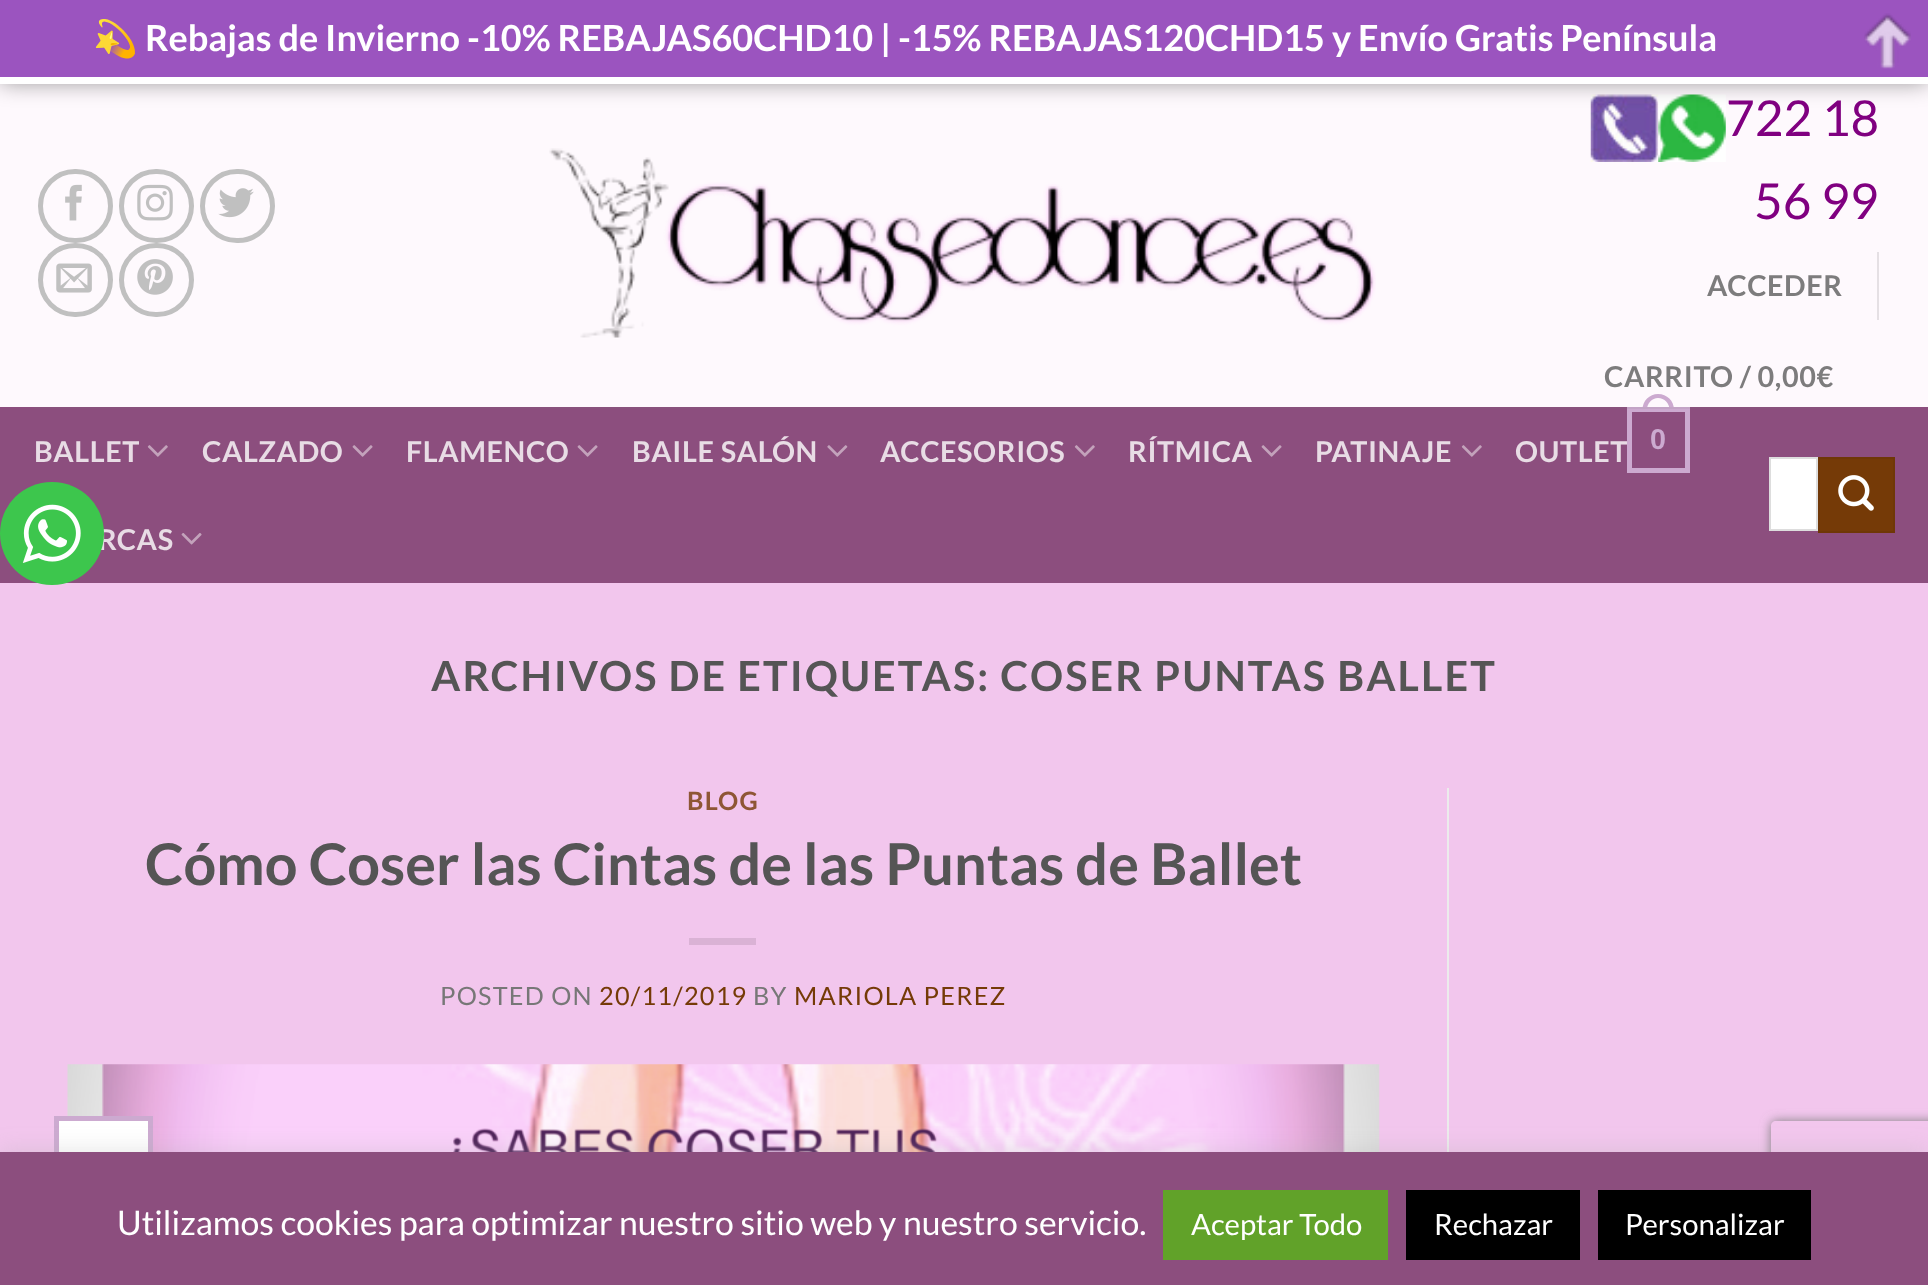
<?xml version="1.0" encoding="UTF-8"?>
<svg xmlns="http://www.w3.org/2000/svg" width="1928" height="1285">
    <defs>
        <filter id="blur1" x="-50%" y="-200%" width="200%" height="500%"><feGaussianBlur stdDeviation="11"/></filter>
        <clipPath id="clip1"><path d="M 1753 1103 H 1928 V 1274 H 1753 Z M 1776 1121 H 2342 C 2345 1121 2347 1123 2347 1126 V 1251 C 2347 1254 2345 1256 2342 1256 H 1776 C 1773 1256 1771 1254 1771 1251 V 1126 C 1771 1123 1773 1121 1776 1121 Z" clip-rule="evenodd"/></clipPath>
        <filter id="blur2" x="-50%" y="-200%" width="200%" height="500%"><feGaussianBlur stdDeviation="5.5"/></filter>
    </defs>
    <rect width="100%" height="100%" fill="#F2C6ED"/>
    <rect x="0" y="84" width="1928" height="323" fill="#FEF9FD"/>
    <image x="1590" y="94" width="69" height="68" href="img_08.png"/>
    <image x="1658" y="94" width="68" height="68" href="img_09.png"/>
    <rect x="0" y="0" width="1928" height="83" fill="#000000" fill-opacity="0.4" filter="url(#blur1)"/>
    <rect x="0" y="0" width="1928" height="77" fill="#9B54BF"/>
    <rect x="0" y="77" width="1928" height="7" fill="#FFFFFF"/>
    <text x="93" y="51" font-family="Noto Color Emoji" font-size="36" font-weight="700" fill="#FFFFFF">💫</text>
    <text x="145" y="51" font-family="Lato" font-size="36" font-weight="700" fill="#FFFFFF">Rebajas de Invierno -10% REBAJAS60CHD10 | -15% REBAJAS120CHD15 y Envío Gratis Península</text>
    <image x="1864" y="13" width="47" height="56" href="img_01.png"/>
    <rect x="40.5" y="171.5" width="70" height="69" rx="34.5" fill="none" stroke="#C0C0C0" stroke-width="5"/>
    <image x="65" y="184" width="17" height="37" href="img_02.png"/>
    <rect x="121.5" y="171.5" width="70" height="69" rx="34.5" fill="none" stroke="#C0C0C0" stroke-width="5"/>
    <image x="137" y="184" width="36" height="37" href="img_03.png"/>
    <rect x="202.5" y="171.5" width="70" height="69" rx="34.5" fill="none" stroke="#C0C0C0" stroke-width="5"/>
    <image x="218" y="188" width="36" height="30" href="img_04.png"/>
    <rect x="40.5" y="245.5" width="70" height="69" rx="34.5" fill="none" stroke="#C0C0C0" stroke-width="5"/>
    <image x="56" y="263" width="36" height="30" href="img_05.png"/>
    <rect x="121.5" y="245.5" width="70" height="69" rx="34.5" fill="none" stroke="#C0C0C0" stroke-width="5"/>
    <image x="137" y="259" width="36" height="36" href="img_06.png"/>
    <image x="549" y="148" width="827" height="190" href="img_07.png"/>
    <text x="1726" y="136" font-family="Lato" font-size="49.5" fill="#800080">722 18</text>
    <text x="1754" y="219" font-family="Lato" font-size="49.5" fill="#800080">56 99</text>
    <text x="1707" y="296" font-family="Lato" font-size="28.75" font-weight="700" letter-spacing="0.6" fill="#7D7C7D">ACCEDER</text>
    <rect x="1877" y="252" width="2" height="68" fill="#E5E0E4"/>
    <text x="1604" y="387" font-family="Lato" font-size="28.75" font-weight="700" letter-spacing="0.6" fill="#7D7C7D">CARRITO / 0,00€</text>
    <rect x="0" y="407" width="1928" height="176" fill="#8C4E7E"/>
    <rect x="1629.5" y="409.5" width="58" height="61" fill="none" stroke="#CCAAD0" stroke-width="5"/>
    <path d="M 1658 394 C 1667 394 1674 401 1674 409.5 V 412 H 1642.5 V 409.5 C 1642.5 401 1649.5 394 1658 394 Z M 1658 398 C 1664.5 398 1669.5 403.5 1669.5 409.5 V 412 H 1647 V 409.5 C 1647 403.5 1652 398 1658 398 Z" fill="#CCAAD0" fill-rule="evenodd"/>
    <text x="1650" y="449" font-family="Liberation Sans" font-size="28.75" font-weight="700" letter-spacing="0.6" fill="#CCAAD0">0</text>
    <rect x="34" y="407" width="1861" height="2" fill="#777777" fill-opacity="0.1"/>
    <text x="34" y="462" font-family="Lato" font-size="28.75" font-weight="700" letter-spacing="0.6" fill="#E8DCE5">BALLET</text>
    <image x="147" y="445" width="21" height="12" href="img_10.png"/>
    <text x="202" y="462" font-family="Lato" font-size="28.75" font-weight="700" letter-spacing="0.6" fill="#E8DCE5">CALZADO</text>
    <image x="352" y="445" width="21" height="12" href="img_11.png"/>
    <text x="406" y="462" font-family="Lato" font-size="28.75" font-weight="700" letter-spacing="0.6" fill="#E8DCE5">FLAMENCO</text>
    <image x="577" y="445" width="21" height="12" href="img_11.png"/>
    <text x="632" y="462" font-family="Lato" font-size="28.75" font-weight="700" letter-spacing="0.6" fill="#E8DCE5">BAILE SALÓN</text>
    <image x="827" y="445" width="21" height="12" href="img_12.png"/>
    <text x="880" y="462" font-family="Lato" font-size="28.75" font-weight="700" letter-spacing="0.6" fill="#E8DCE5">ACCESORIOS</text>
    <image x="1074" y="445" width="21" height="12" href="img_10.png"/>
    <text x="1128" y="462" font-family="Lato" font-size="28.75" font-weight="700" letter-spacing="0.6" fill="#E8DCE5">RÍTMICA</text>
    <image x="1261" y="445" width="21" height="12" href="img_11.png"/>
    <text x="1315" y="462" font-family="Lato" font-size="28.75" font-weight="700" letter-spacing="0.6" fill="#E8DCE5">PATINAJE</text>
    <image x="1461" y="445" width="21" height="12" href="img_10.png"/>
    <text x="1515" y="462" font-family="Lato" font-size="28.75" font-weight="700" letter-spacing="0.6" fill="#E8DCE5">OUTLET</text>
    <text x="98" y="550" font-family="Lato" font-size="28.75" font-weight="700" letter-spacing="0.6" fill="#E8DCE5">RCAS</text>
    <image x="181" y="533" width="21" height="12" href="img_13.png"/>
    <rect x="1770" y="458" width="47" height="72" fill="#FFFFFF" stroke="#DDDDDD" stroke-width="2"/>
    <rect x="1819" y="458" width="75" height="74" fill="#753A07" stroke="#6F3707" stroke-width="2"/>
    <image x="1838" y="475" width="36" height="36" href="img_14.png"/>
    <text x="431" y="691" font-family="Lato" font-size="41.4" font-weight="700" letter-spacing="2.05" fill="#555555">ARCHIVOS DE ETIQUETAS: COSER PUNTAS BALLET</text>
    <text x="687" y="810" font-family="Lato" font-size="25.25" font-weight="700" letter-spacing="1.25" fill="#8E5635">BLOG</text>
    <text x="145" y="885" font-family="Lato" font-size="57.6" font-weight="700" fill="#555555">Cómo Coser las Cintas de las Puntas de Ballet</text>
    <rect x="689" y="938" width="67" height="7" fill="#DAB2D5"/>
    <text x="440" y="1005" font-family="Lato" font-size="25.25" letter-spacing="1.25" fill="#777777">POSTED ON</text>
    <text x="599" y="1005" font-family="Lato" font-size="25.25" letter-spacing="1.25" fill="#753A07">20/11/2019</text>
    <text x="753" y="1005" font-family="Lato" font-size="25.25" letter-spacing="1.25" fill="#777777">BY</text>
    <text x="794" y="1005" font-family="Lato" font-size="25.25" letter-spacing="1.25" fill="#753A07">MARIOLA PEREZ</text>
    <image x="67" y="1064" width="1313" height="88" href="img_15.png"/>
    <rect x="59" y="1121" width="89" height="31" fill="#FFFFFF"/>
    <rect x="56.5" y="1118.5" width="94" height="96" fill="none" stroke="#CCAAD0" stroke-width="5"/>
    <rect x="1447" y="788" width="2" height="364" fill="#ECECEC"/>
    <rect x="0" y="482" width="104" height="103" rx="51.5" fill="#3DC64D"/>
    <image x="22" y="504" width="59" height="59" href="img_16.png"/>
    <rect x="0" y="1150" width="1928" height="135" fill="#ACABAB" fill-opacity="0.3" filter="url(#blur1)"/>
    <g clip-path="url(#clip1)">
        <rect x="1771" y="1121" width="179" height="135" rx="5" fill="#808080" filter="url(#blur2)"/>
    </g>
    <rect x="0" y="1152" width="1928" height="133" fill="#8C4E7E"/>
    <text x="117" y="1235" font-family="Lato" font-size="33.75" fill="#FFFFFF">Utilizamos cookies para optimizar nuestro sitio web y nuestro servicio.</text>
    <rect x="1163" y="1190" width="225" height="70" fill="#61A229"/>
    <text x="1191" y="1235" font-family="Lato" font-size="29.25" fill="#FFFFFF">Aceptar Todo</text>
    <rect x="1406" y="1190" width="174" height="70" fill="#000000"/>
    <text x="1434" y="1235" font-family="Lato" font-size="29.25" fill="#FFFFFF">Rechazar</text>
    <rect x="1598" y="1190" width="213" height="70" fill="#000000"/>
    <text x="1625" y="1235" font-family="Lato" font-size="29.25" fill="#FFFFFF">Personalizar</text>
</svg>
